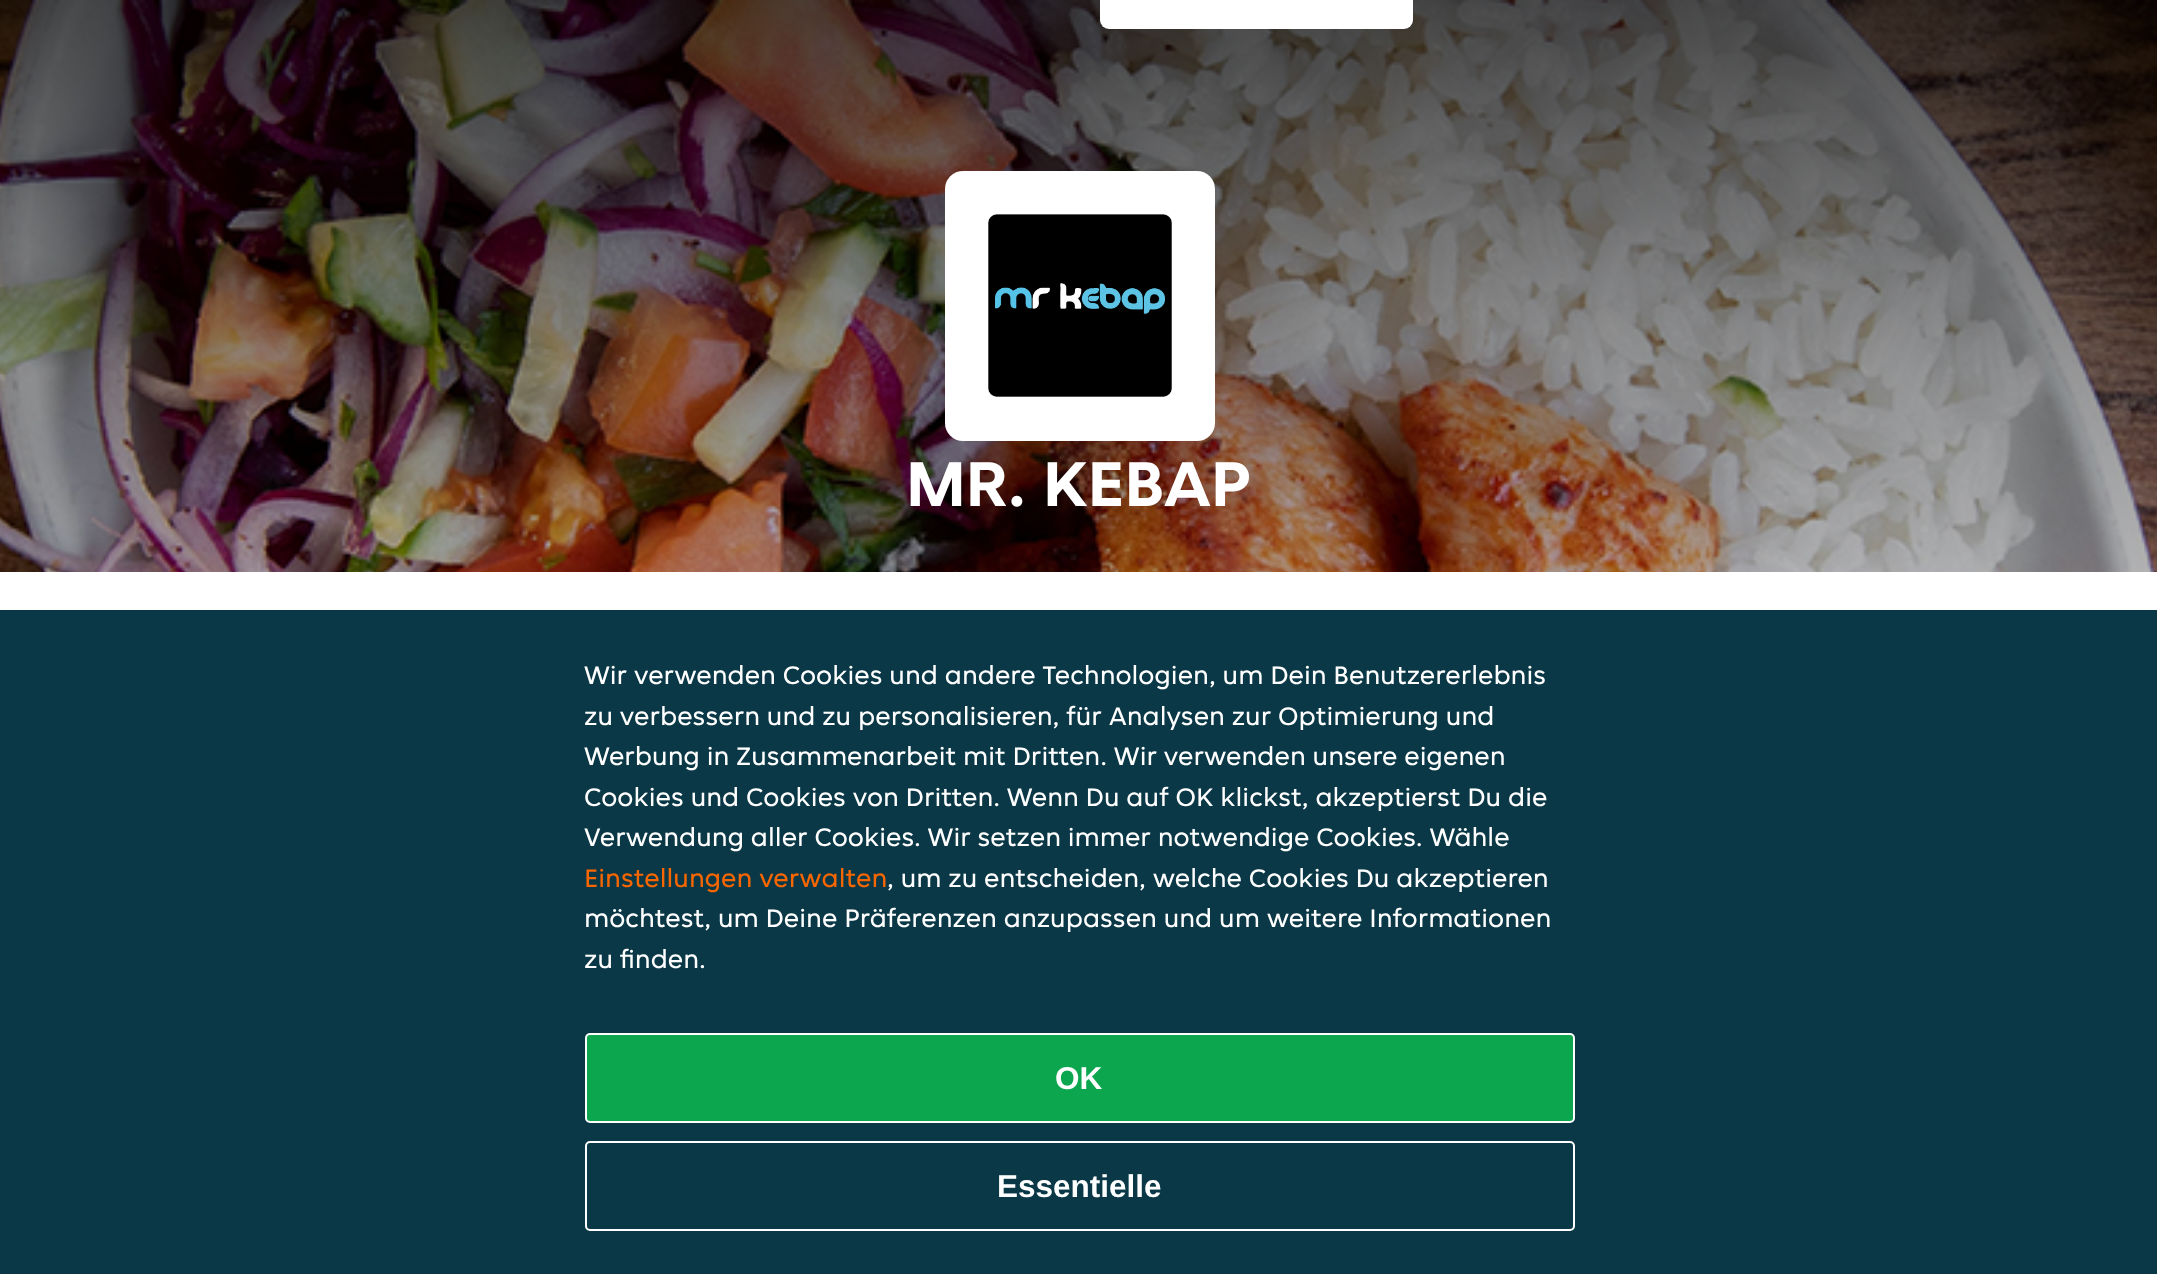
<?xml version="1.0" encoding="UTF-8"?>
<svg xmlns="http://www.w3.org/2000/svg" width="2157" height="1274">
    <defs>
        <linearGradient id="g1" gradientUnits="userSpaceOnUse" x1="1079" y1="0" x2="1079" y2="1125"><stop offset="0" stop-color="#000000" stop-opacity="0.7"/><stop offset="0.33" stop-color="#000000" stop-opacity="0.4"/><stop offset="0.67" stop-color="#000000" stop-opacity="0.2"/><stop offset="1" stop-color="#000000" stop-opacity="0"/></linearGradient>
    </defs>
    <rect width="100%" height="100%" fill="#FFFFFF"/>
    <image x="0" y="0" width="2157" height="572" href="img_01.png"/>
    <rect x="0" y="0" width="2157" height="572" fill="url(#g1)"/>
    <rect x="1100" y="-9" width="313" height="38" rx="9" fill="#FFFFFF"/>
    <rect x="945" y="171" width="270" height="270" rx="18" fill="#FFFFFF"/>
    <image x="988" y="214" width="184" height="183" href="img_02.png"/>
    <text x="906" y="506" font-family="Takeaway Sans" font-size="67.5" font-weight="700" fill="#FFFFFF">MR. KEBAP</text>
    <rect x="0" y="610" width="2157" height="664" fill="#0A3847"/>
    <text font-family="Takeaway Sans" font-size="27" fill="#FFFFFF">
        <tspan x="584" y="684">Wir verwenden Cookies und andere Technologien, um Dein Benutzererlebnis</tspan>
        <tspan x="584" y="725">zu verbessern und zu personalisieren, für Analysen zur Optimierung und</tspan>
        <tspan x="584" y="765">Werbung in Zusammenarbeit mit Dritten. Wir verwenden unsere eigenen</tspan>
        <tspan x="584" y="806">Cookies und Cookies von Dritten. Wenn Du auf OK klickst, akzeptierst Du die</tspan>
        <tspan x="584" y="846">Verwendung aller Cookies. Wir setzen immer notwendige Cookies. Wähle</tspan>
    </text>
    <text x="584" y="887" font-family="Takeaway Sans" font-size="27" fill="#F86600">Einstellungen verwalten</text>
    <text x="887" y="887" font-family="Takeaway Sans" font-size="27" fill="#FFFFFF">, um zu entscheiden, welche Cookies Du akzeptieren</text>
    <text font-family="Takeaway Sans" font-size="27" fill="#FFFFFF">
        <tspan x="584" y="927">möchtest, um Deine Präferenzen anzupassen und um weitere Informationen</tspan>
        <tspan x="584" y="968">zu finden.</tspan>
    </text>
    <rect x="586" y="1034" width="988" height="88" rx="4" fill="#0CA64F" stroke="#FFFFFF" stroke-width="2"/>
    <text x="1055" y="1089" font-family="Liberation Sans" font-size="31.5" font-weight="700" fill="#FFFFFF">OK</text>
    <rect x="586" y="1142" width="988" height="88" rx="4" fill="none" stroke="#FFFFFF" stroke-width="2"/>
    <text x="997" y="1197" font-family="Liberation Sans" font-size="31.5" font-weight="700" fill="#FFFFFF">Essentielle</text>
</svg>
